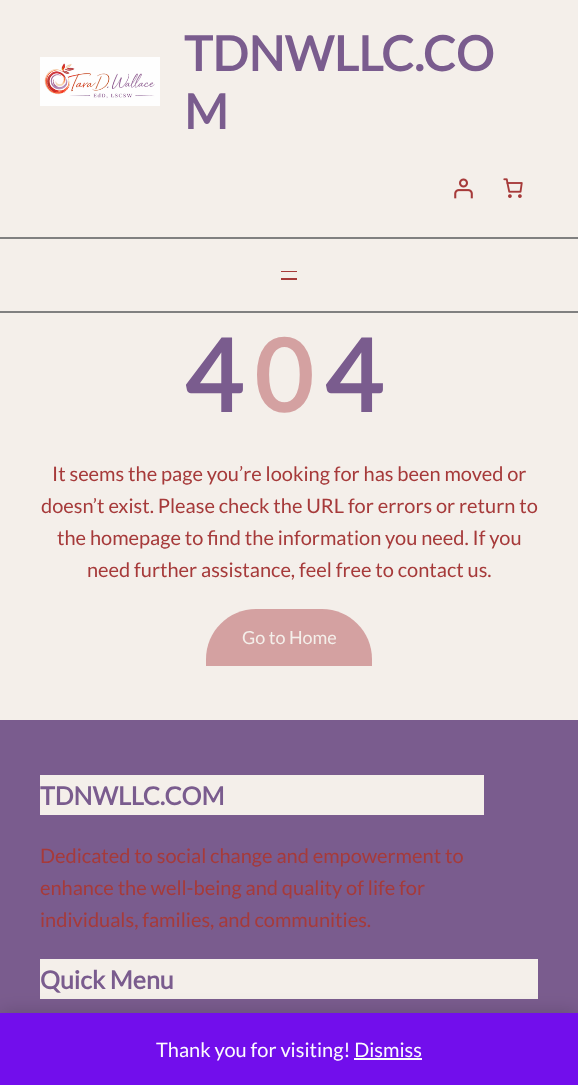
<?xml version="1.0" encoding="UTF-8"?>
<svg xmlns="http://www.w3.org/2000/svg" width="578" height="1085">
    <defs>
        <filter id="blur1" x="-50%" y="-200%" width="200%" height="500%"><feGaussianBlur stdDeviation="10"/></filter>
    </defs>
    <rect width="100%" height="100%" fill="#F4EFEA"/>
    <image x="40" y="57" width="120" height="49" href="img_01.png"/>
    <text font-family="Lato" font-size="48" font-weight="700" fill="#7A5C8E">
        <tspan x="184" y="71">TDNWLLC.CO</tspan>
        <tspan x="184" y="129">M</tspan>
    </text>
    <image x="454" y="178" width="19" height="21" href="img_02.png"/>
    <image x="503" y="178" width="20" height="20" href="img_03.png"/>
    <rect x="0" y="237" width="578" height="2" fill="#808080"/>
    <rect x="281" y="271" width="16" height="1" fill="#A63A3A"/>
    <rect x="281" y="278" width="16" height="2" fill="#A63A3A"/>
    <rect x="0" y="311" width="578" height="2" fill="#808080"/>
    <text x="184" y="412" font-family="Lato" font-size="100" font-weight="700" letter-spacing="12" fill="#7A5C8E">4</text>
    <text x="254" y="412" font-family="Lato" font-size="100" font-weight="700" letter-spacing="12" fill="#D4A1A1">0</text>
    <text x="324" y="412" font-family="Lato" font-size="100" font-weight="700" letter-spacing="12" fill="#7A5C8E">4</text>
    <text x="52" y="481" font-family="Lato" font-size="20" fill="#A63A3A">It seems the page you’re looking for has been moved or</text>
    <text x="41" y="513" font-family="Lato" font-size="20" fill="#A63A3A">doesn’t exist. Please check the URL for errors or return to</text>
    <text x="57" y="545" font-family="Lato" font-size="20" fill="#A63A3A">the homepage to find the information you need. If you</text>
    <text x="87" y="577" font-family="Lato" font-size="20" fill="#A63A3A">need further assistance, feel free to contact us.</text>
    <path d="M 256 609 H 322 C 349.5 609 372 631.5 372 659 V 666 H 206 V 659 C 206 631.5 228.5 609 256 609 Z" fill="#D4A1A1"/>
    <text x="242" y="644" font-family="Lato" font-size="18" fill="#F4EFEA">Go to Home</text>
    <rect x="0" y="720" width="578" height="293" fill="#7A5C8E"/>
    <rect x="40" y="775" width="444" height="40" fill="#F4EFEA"/>
    <text x="40" y="805" font-family="Lato" font-size="25" font-weight="700" fill="#7A5C8E">TDNWLLC.COM</text>
    <text font-family="Lato" font-size="20" fill="#A63A3A">
        <tspan x="40" y="863">Dedicated to social change and empowerment to</tspan>
        <tspan x="40" y="895">enhance the well-being and quality of life for</tspan>
        <tspan x="40" y="927">individuals, families, and communities.</tspan>
    </text>
    <rect x="40" y="959" width="498" height="40" fill="#F4EFEA"/>
    <text x="40" y="989" font-family="Lato" font-size="25" font-weight="700" fill="#7A5C8E">Quick Menu</text>
    <rect x="0" y="1014" width="578" height="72" fill="#000000" fill-opacity="0.2" filter="url(#blur1)"/>
    <rect x="0" y="1013" width="578" height="72" fill="#720EEC"/>
    <text x="156" y="1057" font-family="Lato" font-size="20" fill="#FCFBFE">Thank you for visiting! Dismiss</text>
    <rect x="354" y="1058" width="68" height="2" fill="#FCFBFE"/>
</svg>
